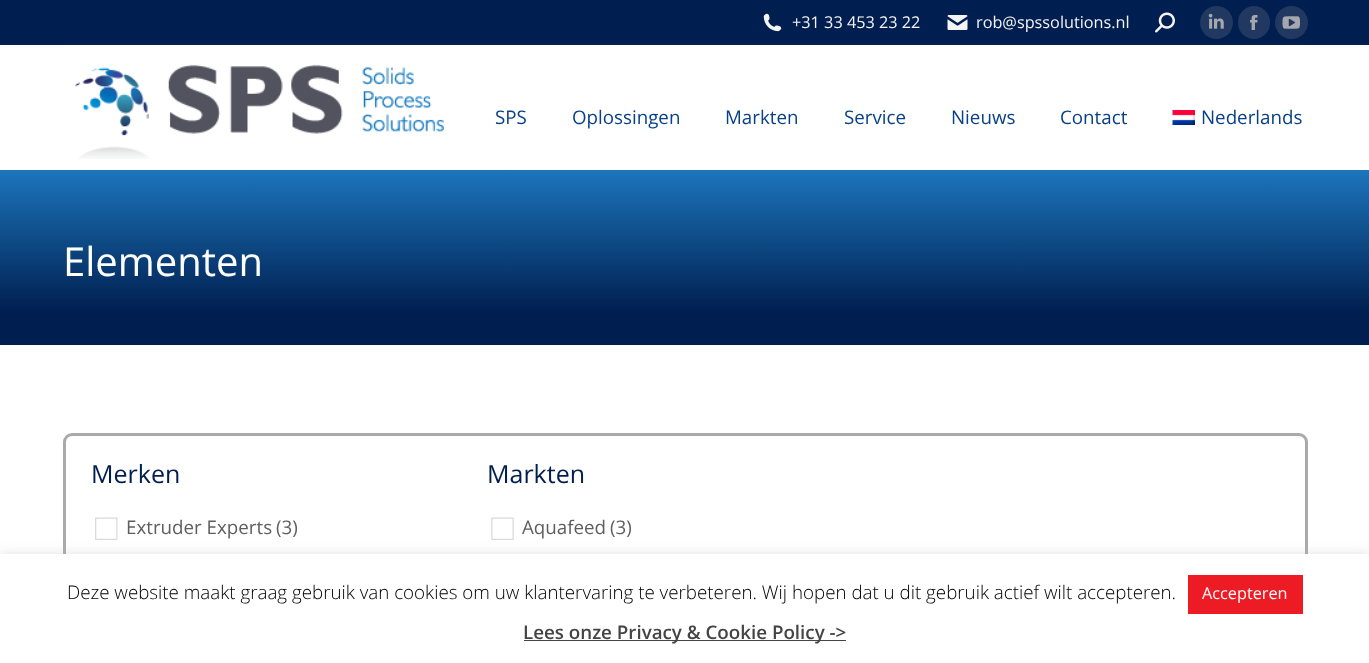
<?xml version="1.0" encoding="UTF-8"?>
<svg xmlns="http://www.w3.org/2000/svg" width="1369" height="663">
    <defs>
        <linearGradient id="g1" gradientUnits="userSpaceOnUse" x1="685" y1="345" x2="685" y2="170"><stop offset="0.18" stop-color="#001E4F"/><stop offset="1" stop-color="#1C75BC"/></linearGradient>
        <filter id="blur1" x="-50%" y="-200%" width="200%" height="500%"><feGaussianBlur stdDeviation="6"/></filter>
    </defs>
    <rect width="100%" height="100%" fill="#FFFFFF"/>
    <rect x="0" y="0" width="1369" height="45" fill="#001E4F"/>
    <image x="763" y="13" width="19" height="19" href="img_01.png"/>
    <text x="792" y="28" font-family="Open Sans" font-size="16.25" fill="#F4F4F4">+31 33 453 23 22</text>
    <image x="947" y="15" width="21" height="15" href="img_02.png"/>
    <text x="976" y="28" font-family="Open Sans" font-size="16.25" fill="#F4F4F4">rob@spssolutions.nl</text>
    <image x="1155" y="12" width="20" height="21" href="img_03.png"/>
    <circle cx="1216.5" cy="22.5" r="16.5" fill="#213961"/>
    <image x="1208" y="13" width="16" height="16" href="img_04.png"/>
    <rect x="1238" y="6" width="32" height="33" rx="16" fill="#213961"/>
    <image x="1250" y="15" width="8" height="15" href="img_05.png"/>
    <circle cx="1291.5" cy="22.5" r="16.5" fill="#213961"/>
    <image x="1282" y="16" width="18" height="13" href="img_06.png"/>
    <rect x="63" y="44" width="1245" height="1" fill="#06214C"/>
    <image x="75" y="64" width="369" height="95" href="img_07.png"/>
    <text x="495" y="124" font-family="Open Sans" font-size="18.75" fill="#084187">SPS</text>
    <text x="572" y="124" font-family="Open Sans" font-size="18.75" fill="#084187">Oplossingen</text>
    <text x="725" y="124" font-family="Open Sans" font-size="18.75" fill="#084187">Markten</text>
    <text x="844" y="124" font-family="Open Sans" font-size="18.75" fill="#084187">Service</text>
    <text x="951" y="124" font-family="Open Sans" font-size="18.75" fill="#084187">Nieuws</text>
    <text x="1060" y="124" font-family="Open Sans" font-size="18.75" fill="#084187">Contact</text>
    <image x="1172" y="110" width="23" height="15" href="img_08.png"/>
    <text x="1201" y="124" font-family="Open Sans" font-size="18.75" fill="#084187">Nederlands</text>
    <rect x="0" y="170" width="1369" height="175" fill="url(#g1)"/>
    <text x="63" y="276" font-family="Open Sans" font-size="40" fill="#FFFFFF">Elementen</text>
    <rect x="64.5" y="434.5" width="1242" height="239" rx="7.5" fill="none" stroke="#AAAAAA" stroke-width="3"/>
    <text x="91" y="483" font-family="Open Sans" font-size="25" fill="#001E4F">Merken</text>
    <image x="95" y="517" width="23" height="23" href="img_09.png"/>
    <text x="126" y="534" font-family="Open Sans" font-size="18.75" fill="#5E5E5E">Extruder Experts</text>
    <text x="276" y="534" font-family="Open Sans" font-size="18.75" fill="#5E5E5E">(3)</text>
    <text x="487" y="483" font-family="Open Sans" font-size="25" fill="#001E4F">Markten</text>
    <image x="491" y="517" width="23" height="23" href="img_10.png"/>
    <text x="522" y="534" font-family="Open Sans" font-size="18.75" fill="#5E5E5E">Aquafeed</text>
    <text x="610" y="534" font-family="Open Sans" font-size="18.75" fill="#5E5E5E">(3)</text>
    <rect x="0" y="553" width="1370" height="110" fill="#ACABAB" fill-opacity="0.3" filter="url(#blur1)"/>
    <rect x="0" y="554" width="1369" height="109" fill="#FFFFFF"/>
    <text x="67" y="599" font-family="Open Sans" font-size="18.75" font-weight="300" fill="#000000">Deze website maakt graag gebruik van cookies om uw klantervaring te verbeteren. Wij hopen dat u dit gebruik actief wilt accepteren.</text>
    <rect x="1188" y="575" width="115" height="39" fill="#ED1C24"/>
    <text x="1202" y="599" font-family="Open Sans" font-size="16.25" fill="#FFFFFF">Accepteren</text>
    <rect x="524" y="640" width="322" height="1" fill="#444444"/>
    <text x="523" y="639" font-family="Open Sans" font-size="18.75" font-weight="600" fill="#444444">Lees onze Privacy &amp; Cookie Policy -&gt;</text>
</svg>
